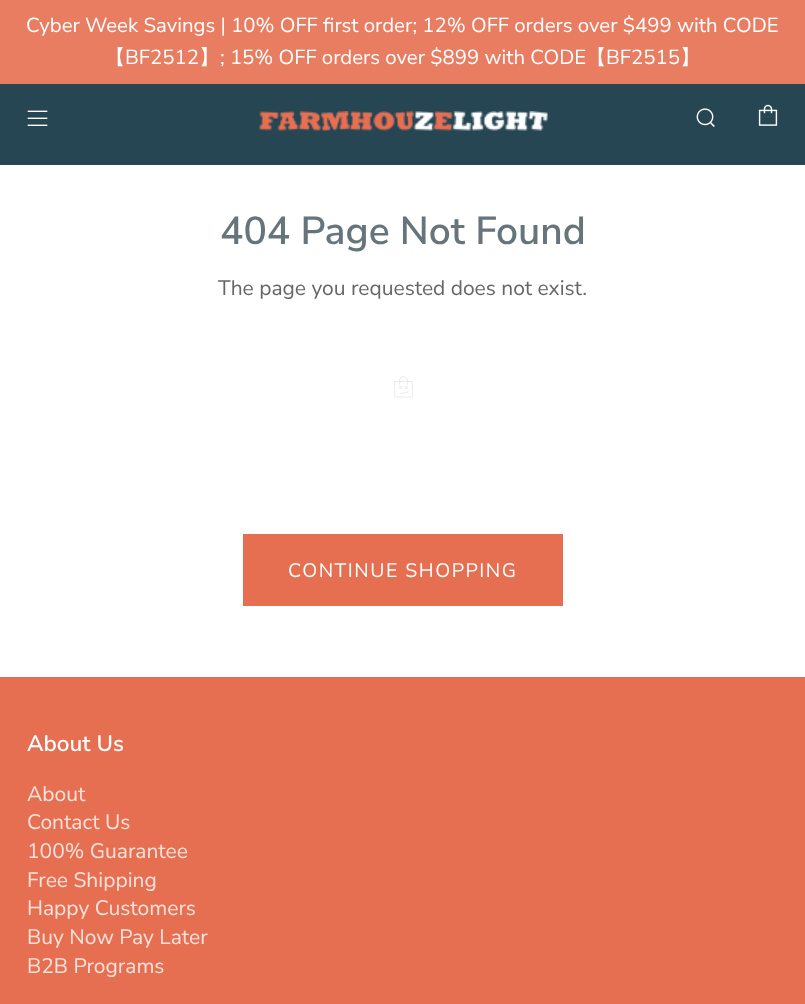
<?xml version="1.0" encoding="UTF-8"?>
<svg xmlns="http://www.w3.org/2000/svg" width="805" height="1004">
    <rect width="100%" height="100%" fill="#FFFFFF"/>
    <rect x="0" y="0" width="805" height="84" fill="#E97D62"/>
    <text x="26" y="32" font-family="Nunito Sans" font-size="20.4" fill="#FFFFFF">Cyber Week Savings | 10% OFF first order; 12% OFF orders over $499 with CODE</text>
    <text x="105" y="64" font-family="WenQuanYi Zen Hei" font-size="20.4" font-weight="500" fill="#FFFFFF">【</text>
    <text x="125" y="64" font-family="Nunito Sans" font-size="20.4" fill="#FFFFFF">BF2512</text>
    <text x="199" y="64" font-family="WenQuanYi Zen Hei" font-size="20.4" font-weight="500" fill="#FFFFFF">】</text>
    <text x="220" y="64" font-family="Nunito Sans" font-size="20.4" fill="#FFFFFF">; 15% OFF orders over $899 with CODE</text>
    <text x="586" y="64" font-family="WenQuanYi Zen Hei" font-size="20.4" font-weight="500" fill="#FFFFFF">【</text>
    <text x="606" y="64" font-family="Nunito Sans" font-size="20.4" fill="#FFFFFF">BF2515</text>
    <text x="680" y="64" font-family="WenQuanYi Zen Hei" font-size="20.4" font-weight="500" fill="#FFFFFF">】</text>
    <rect x="0" y="84" width="805" height="81" fill="#264653"/>
    <image x="27" y="110" width="21" height="16" href="img_01.png"/>
    <image x="259" y="111" width="289" height="20" href="img_02.png"/>
    <image x="696" y="108" width="19" height="19" href="img_03.png"/>
    <image x="758" y="104" width="20" height="22" href="img_04.png"/>
    <text x="220" y="244" font-family="Nunito Sans" font-size="39" font-weight="600" fill="#66757B">404 Page Not Found</text>
    <text x="218" y="295" font-family="Nunito Sans" font-size="21" fill="#666666">The page you requested does not exist.</text>
    <image x="394" y="376" width="19" height="22" href="img_05.png"/>
    <rect x="243" y="534" width="320" height="72" fill="#E76F51"/>
    <text x="288" y="577" font-family="Nunito Sans" font-size="19.5" letter-spacing="1.5" fill="#FFFFFF">CONTINUE SHOPPING</text>
    <rect x="0" y="677" width="805" height="327" fill="#E76F51"/>
    <text x="27" y="751" font-family="Nunito Sans" font-size="22.5" font-weight="600" fill="#FFFFFF">About Us</text>
    <text font-family="Nunito Sans" font-size="21" fill="#FAE2DC">
        <tspan x="27" y="801">About</tspan>
        <tspan x="27" y="829">Contact Us</tspan>
        <tspan x="27" y="858">100% Guarantee</tspan>
        <tspan x="27" y="887">Free Shipping</tspan>
        <tspan x="27" y="915">Happy Customers</tspan>
        <tspan x="27" y="944">Buy Now Pay Later</tspan>
        <tspan x="27" y="973">B2B Programs</tspan>
    </text>
</svg>
